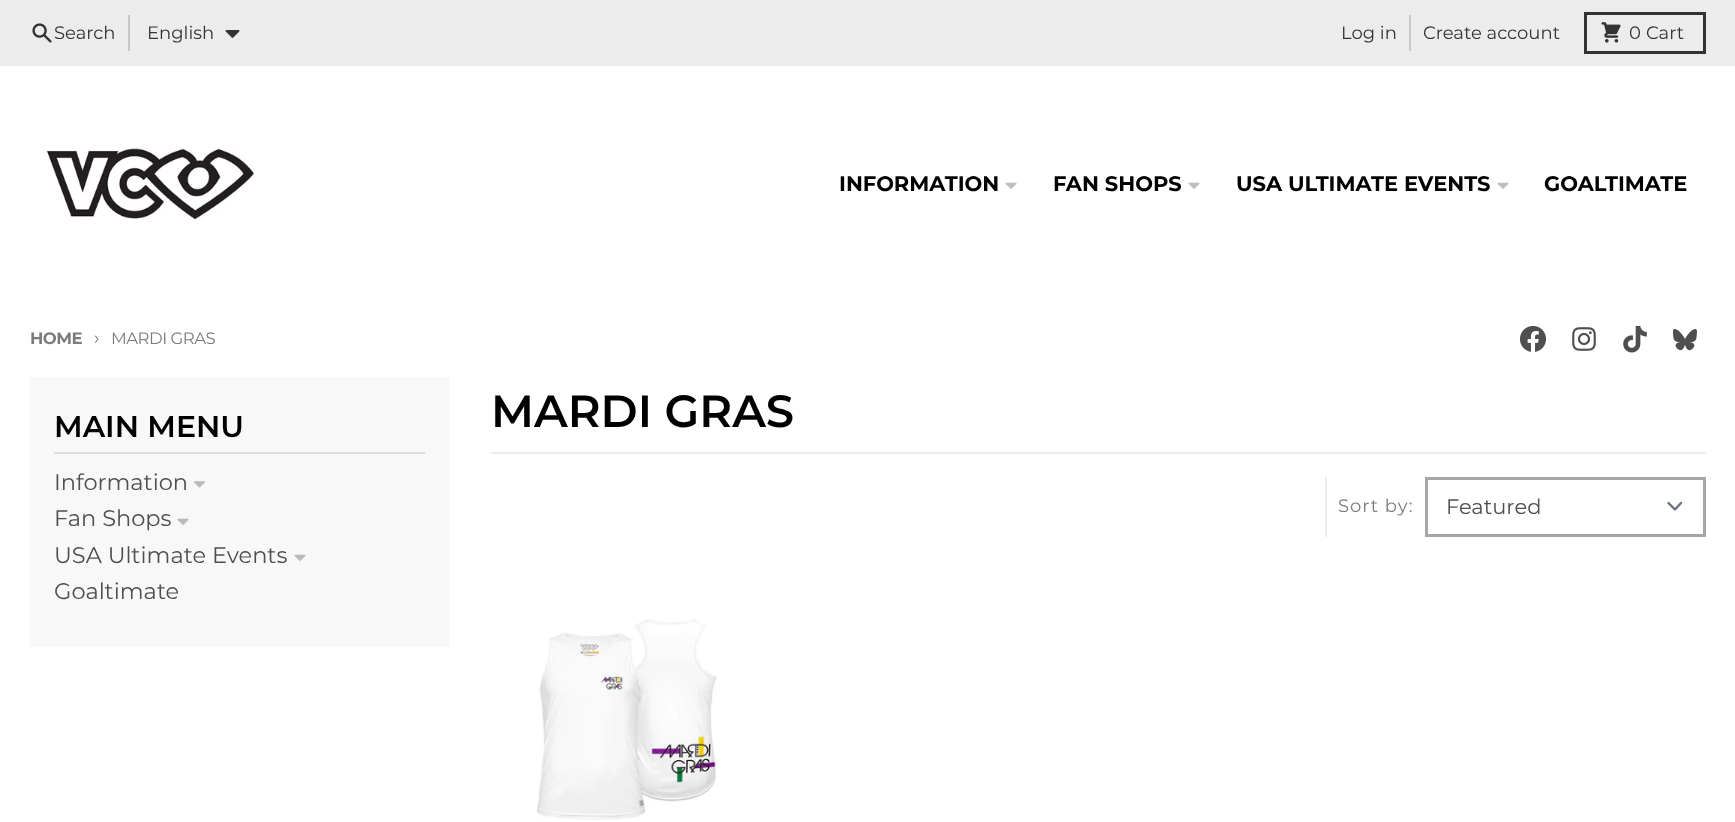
<?xml version="1.0" encoding="UTF-8"?>
<svg xmlns="http://www.w3.org/2000/svg" width="1735" height="822">
    <rect width="100%" height="100%" fill="#ECECEC"/>
    <image x="32" y="23" width="20" height="20" href="img_01.png"/>
    <text x="54" y="39" font-family="Montserrat" font-size="18" fill="#333333">Search</text>
    <rect x="128" y="15" width="2" height="36" fill="#C7C7C7"/>
    <text x="147" y="39" font-family="Montserrat" font-size="18" fill="#333333">English</text>
    <image x="225" y="30" width="15" height="8" href="img_02.png"/>
    <text x="1341" y="39" font-family="Montserrat" font-size="18" fill="#333333">Log in</text>
    <rect x="1409" y="15" width="2" height="36" fill="#C7C7C7"/>
    <text x="1423" y="39" font-family="Montserrat" font-size="18" fill="#333333">Create account</text>
    <rect x="1585.5" y="13.5" width="119" height="39" fill="none" stroke="#333333" stroke-width="3"/>
    <image x="1601" y="22" width="20" height="21" href="img_03.png"/>
    <text x="1629" y="39" font-family="Montserrat" font-size="18" fill="#333333">0</text>
    <text x="1646" y="39" font-family="Montserrat" font-size="18" fill="#333333">Cart</text>
    <rect x="0" y="66" width="1735" height="756" fill="#FFFFFF"/>
    <image x="46" y="147" width="209" height="73" href="img_04.png"/>
    <text x="839" y="191" font-family="Montserrat" font-size="21" font-weight="700" fill="#000000">INFORMATION</text>
    <image x="1005" y="182" width="12" height="7" href="img_05.png"/>
    <text x="1053" y="191" font-family="Montserrat" font-size="21" font-weight="700" fill="#000000">FAN SHOPS</text>
    <image x="1188" y="182" width="12" height="7" href="img_05.png"/>
    <text x="1236" y="191" font-family="Montserrat" font-size="21" font-weight="700" fill="#000000">USA ULTIMATE EVENTS</text>
    <image x="1497" y="182" width="12" height="7" href="img_05.png"/>
    <text x="1544" y="191" font-family="Montserrat" font-size="21" font-weight="700" fill="#000000">GOALTIMATE</text>
    <text x="30" y="344" font-family="Montserrat" font-size="16.5" font-weight="700" letter-spacing="-0.5" fill="#7B7B7B">HOME</text>
    <text x="94" y="344" font-family="Montserrat" font-size="18" letter-spacing="-0.5" fill="#7B7B7B">›</text>
    <text x="111" y="344" font-family="Montserrat" font-size="16.5" letter-spacing="-0.5" fill="#7B7B7B">MARDI GRAS</text>
    <image x="1520" y="326" width="27" height="26" href="img_06.png"/>
    <image x="1572" y="327" width="24" height="24" href="img_07.png"/>
    <image x="1623" y="326" width="24" height="27" href="img_08.png"/>
    <image x="1673" y="329" width="24" height="22" href="img_09.png"/>
    <rect x="30" y="377" width="419" height="270" fill="#F8F8F8"/>
    <rect x="54" y="452" width="371" height="2" fill="#DCDCDC"/>
    <text x="54" y="437" font-family="Montserrat" font-size="30" font-weight="600" fill="#000000">MAIN MENU</text>
    <text x="54" y="490" font-family="Montserrat" font-size="22.5" fill="#4F4F4F">Information</text>
    <image x="194" y="481" width="11" height="7" href="img_10.png"/>
    <text x="54" y="526" font-family="Montserrat" font-size="22.5" fill="#4F4F4F">Fan Shops</text>
    <image x="177" y="518" width="12" height="7" href="img_11.png"/>
    <text x="54" y="563" font-family="Montserrat" font-size="22.5" fill="#4F4F4F">USA Ultimate Events</text>
    <image x="294" y="554" width="12" height="7" href="img_11.png"/>
    <text x="54" y="599" font-family="Montserrat" font-size="22.5" fill="#4F4F4F">Goaltimate</text>
    <rect x="491" y="452" width="1215" height="2" fill="#EDEDED"/>
    <text x="491" y="427" font-family="Montserrat" font-size="45" font-weight="600" fill="#000000">MARDI GRAS</text>
    <rect x="1325" y="477" width="2" height="60" fill="#EDEDED"/>
    <text x="1338" y="512" font-family="Montserrat" font-size="18" letter-spacing="1" fill="#7B7B7B">Sort by:</text>
    <path d="M 1668.5 503 L 1675 509.5 L 1681 503" fill="none" stroke="#6B7280" stroke-width="2.4" stroke-linecap="round" stroke-linejoin="round"/>
    <rect x="1426.5" y="478.5" width="278" height="57" fill="none" stroke="#A7A7A7" stroke-width="3"/>
    <text x="1446" y="514" font-family="Montserrat" font-size="21" fill="#4F4F4F">Featured</text>
    <image x="534" y="602" width="183" height="218" href="img_12.png"/>
</svg>
